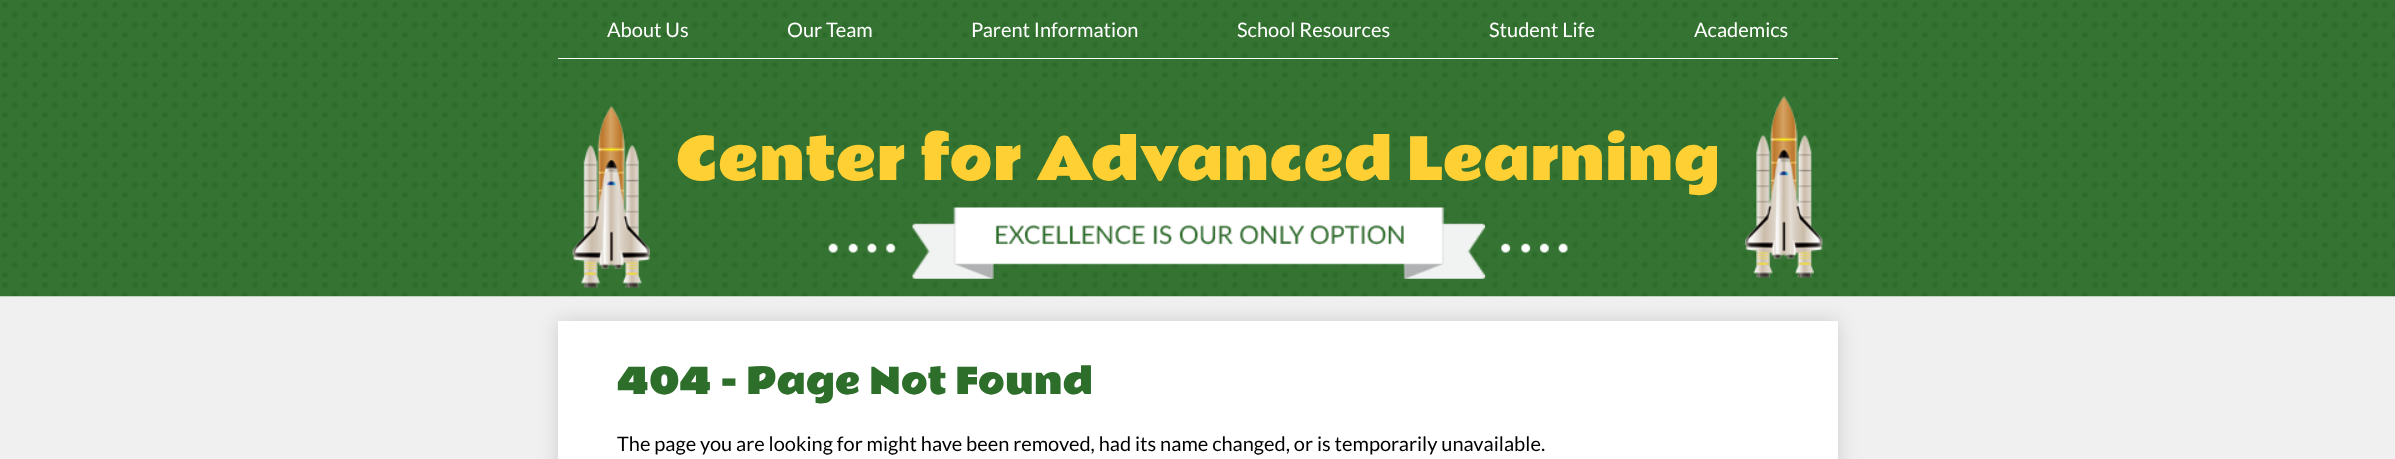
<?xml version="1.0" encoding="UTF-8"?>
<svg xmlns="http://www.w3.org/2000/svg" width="2395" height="459">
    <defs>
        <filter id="blur1" x="-50%" y="-200%" width="200%" height="500%"><feGaussianBlur stdDeviation="9.5"/></filter>
    </defs>
    <rect width="100%" height="100%" fill="#F0F0F0"/>
    <rect x="558" y="321" width="1280" height="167" fill="#000000" fill-opacity="0.15" filter="url(#blur1)"/>
    <image x="0" y="0" width="2395" height="297" href="img_01.png"/>
    <rect x="558" y="58" width="1280" height="1" fill="#FFFFFF"/>
    <text x="607" y="37" font-family="Lato" font-size="20" fill="#FFFFFF">About Us</text>
    <text x="787" y="37" font-family="Lato" font-size="20" fill="#FFFFFF">Our Team</text>
    <text x="971" y="37" font-family="Lato" font-size="20" fill="#FFFFFF">Parent Information</text>
    <text x="1237" y="37" font-family="Lato" font-size="20" fill="#FFFFFF">School Resources</text>
    <text x="1489" y="37" font-family="Lato" font-size="20" fill="#FFFFFF">Student Life</text>
    <text x="1694" y="37" font-family="Lato" font-size="20" fill="#FFFFFF">Academics</text>
    <image x="572" y="106" width="78" height="182" href="img_02.png"/>
    <text x="676" y="180" font-family="Rammetto One" font-size="56" fill="#FED033">Center for Advanced Learning</text>
    <image x="828" y="207" width="740" height="72" href="img_03.png"/>
    <image x="1745" y="96" width="78" height="182" href="img_04.png"/>
    <rect x="558" y="321" width="1280" height="138" fill="#FFFFFF"/>
    <text x="617" y="394" font-family="Rammetto One" font-size="35" fill="#2D6E2A">404 - Page Not Found</text>
    <text x="617" y="451" font-family="Lato" font-size="20" fill="#000000">The page you are looking for might have been removed, had its name changed, or is temporarily unavailable.</text>
</svg>
